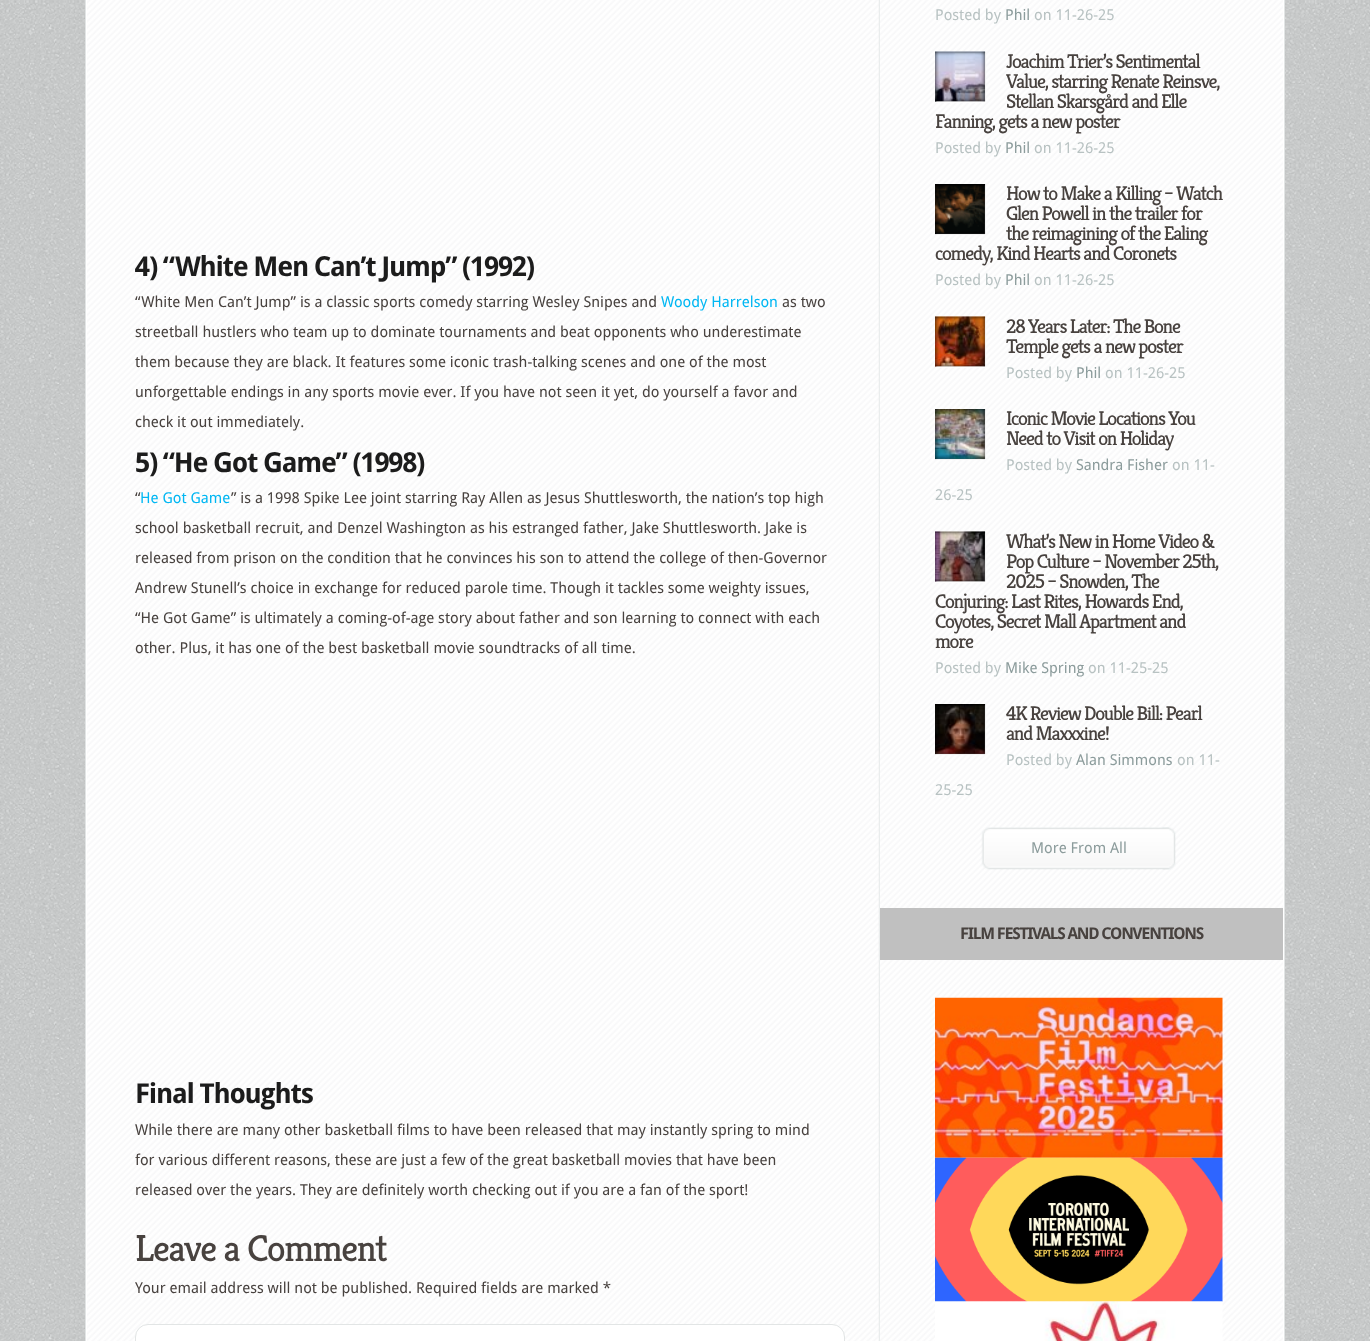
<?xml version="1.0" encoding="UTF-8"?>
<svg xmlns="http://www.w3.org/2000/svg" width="1370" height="1341">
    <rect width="100%" height="100%" fill="#FAFCFC"/>
    <image x="0" y="0" width="1370" height="1341" href="img_01.png"/>
    <rect x="85.5" y="-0.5" width="1199" height="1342" fill="none" stroke="#E2E5E5"/>
    <rect x="86" y="0" width="1198" height="1341" fill="#FFFFFF"/>
    <image x="87" y="0" width="1196" height="1341" href="img_02.png"/>
    <image x="878" y="0" width="2" height="1341" href="img_03.png"/>
    <text x="135" y="276" font-family="Droid Sans" font-size="27.5" font-weight="700" letter-spacing="-1.25" fill="#1C1C1C">4) “White Men Can’t Jump” (1992)</text>
    <text x="135" y="307" font-family="Droid Sans" font-size="15" fill="#48423F">“White Men Can’t Jump” is a classic sports comedy starring Wesley Snipes and</text>
    <text x="661" y="307" font-family="Droid Sans" font-size="15" fill="#00B7F3">Woody Harrelson</text>
    <text x="782" y="307" font-family="Droid Sans" font-size="15" fill="#48423F">as two</text>
    <text x="135" y="337" font-family="Droid Sans" font-size="15" fill="#48423F">streetball hustlers who team up to dominate tournaments and beat opponents who underestimate</text>
    <text x="135" y="367" font-family="Droid Sans" font-size="15" fill="#48423F">them because they are black. It features some iconic trash-talking scenes and one of the most</text>
    <text x="135" y="397" font-family="Droid Sans" font-size="15" fill="#48423F">unforgettable endings in any sports movie ever. If you have not seen it yet, do yourself a favor and</text>
    <text x="135" y="427" font-family="Droid Sans" font-size="15" fill="#48423F">check it out immediately.</text>
    <text x="135" y="472" font-family="Droid Sans" font-size="27.5" font-weight="700" letter-spacing="-1.25" fill="#1C1C1C">5) “He Got Game” (1998)</text>
    <text x="135" y="503" font-family="Droid Sans" font-size="15" fill="#48423F">“</text>
    <text x="140" y="503" font-family="Droid Sans" font-size="15" fill="#00B7F3">He Got Game</text>
    <text x="231" y="503" font-family="Droid Sans" font-size="15" fill="#48423F">” is a 1998 Spike Lee joint starring Ray Allen as Jesus Shuttlesworth, the nation’s top high</text>
    <text x="135" y="533" font-family="Droid Sans" font-size="15" fill="#48423F">school basketball recruit, and Denzel Washington as his estranged father, Jake Shuttlesworth. Jake is</text>
    <text x="135" y="563" font-family="Droid Sans" font-size="15" fill="#48423F">released from prison on the condition that he convinces his son to attend the college of then-Governor</text>
    <text x="135" y="593" font-family="Droid Sans" font-size="15" fill="#48423F">Andrew Stunell’s choice in exchange for reduced parole time. Though it tackles some weighty issues,</text>
    <text x="135" y="623" font-family="Droid Sans" font-size="15" fill="#48423F">“He Got Game” is ultimately a coming-of-age story about father and son learning to connect with each</text>
    <text x="135" y="653" font-family="Droid Sans" font-size="15" fill="#48423F">other. Plus, it has one of the best basketball movie soundtracks of all time.</text>
    <text x="135" y="1103" font-family="Droid Sans" font-size="27.5" font-weight="700" letter-spacing="-1.25" fill="#1C1C1C">Final Thoughts</text>
    <text x="135" y="1135" font-family="Droid Sans" font-size="15" fill="#48423F">While there are many other basketball films to have been released that may instantly spring to mind</text>
    <text x="135" y="1165" font-family="Droid Sans" font-size="15" fill="#48423F">for various different reasons, these are just a few of the great basketball movies that have been</text>
    <text x="135" y="1195" font-family="Droid Sans" font-size="15" fill="#48423F">released over the years. They are definitely worth checking out if you are a fan of the sport!</text>
    <text x="135" y="1261" font-family="Kreon" font-size="37.5" letter-spacing="-1.25" fill="#48423F">Leave a Comment</text>
    <text x="135" y="1293" font-family="Droid Sans" font-size="15" fill="#48423F">Your email address will not be published. Required fields are marked *</text>
    <rect x="135.5" y="1324.5" width="709" height="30" rx="12.5" fill="#FFFFFF" stroke="#E2E5E5"/>
    <text x="935" y="20" font-family="Droid Sans" font-size="15" fill="#B8C2C2">Posted by</text>
    <text x="1005" y="20" font-family="Droid Sans" font-size="15" fill="#8C9C9C">Phil</text>
    <text x="1034" y="20" font-family="Droid Sans" font-size="15" fill="#B8C2C2">on 11-26-25</text>
    <image x="935" y="51" width="50" height="51" href="img_04.png"/>
    <image x="935" y="51" width="51" height="52" href="img_05.png"/>
    <text font-family="Kreon" font-size="20" letter-spacing="-1.25" fill="#48423F">
        <tspan x="1006" y="68">Joachim Trier’s Sentimental</tspan>
        <tspan x="1006" y="88">Value, starring Renate Reinsve,</tspan>
        <tspan x="1006" y="108">Stellan Skarsgård and Elle</tspan>
    </text>
    <text x="935" y="128" font-family="Kreon" font-size="20" letter-spacing="-1.25" fill="#48423F">Fanning, gets a new poster</text>
    <text x="935" y="153" font-family="Droid Sans" font-size="15" fill="#B8C2C2">Posted by</text>
    <text x="1005" y="153" font-family="Droid Sans" font-size="15" fill="#8C9C9C">Phil</text>
    <text x="1034" y="153" font-family="Droid Sans" font-size="15" fill="#B8C2C2">on 11-26-25</text>
    <image x="935" y="184" width="50" height="50" href="img_06.png"/>
    <image x="935" y="184" width="51" height="51" href="img_07.png"/>
    <text font-family="Kreon" font-size="20" letter-spacing="-1.25" fill="#48423F">
        <tspan x="1006" y="200">How to Make a Killing – Watch</tspan>
        <tspan x="1006" y="220">Glen Powell in the trailer for</tspan>
        <tspan x="1006" y="240">the reimagining of the Ealing</tspan>
    </text>
    <text x="935" y="260" font-family="Kreon" font-size="20" letter-spacing="-1.25" fill="#48423F">comedy, Kind Hearts and Coronets</text>
    <text x="935" y="285" font-family="Droid Sans" font-size="15" fill="#B8C2C2">Posted by</text>
    <text x="1005" y="285" font-family="Droid Sans" font-size="15" fill="#8C9C9C">Phil</text>
    <text x="1034" y="285" font-family="Droid Sans" font-size="15" fill="#B8C2C2">on 11-26-25</text>
    <image x="935" y="316" width="50" height="51" href="img_08.png"/>
    <image x="935" y="316" width="51" height="52" href="img_09.png"/>
    <text font-family="Kreon" font-size="20" letter-spacing="-1.25" fill="#48423F">
        <tspan x="1006" y="333">28 Years Later: The Bone</tspan>
        <tspan x="1006" y="353">Temple gets a new poster</tspan>
    </text>
    <text x="1006" y="378" font-family="Droid Sans" font-size="15" fill="#B8C2C2">Posted by</text>
    <text x="1076" y="378" font-family="Droid Sans" font-size="15" fill="#8C9C9C">Phil</text>
    <text x="1105" y="378" font-family="Droid Sans" font-size="15" fill="#B8C2C2">on 11-26-25</text>
    <image x="935" y="409" width="50" height="50" href="img_10.png"/>
    <image x="935" y="409" width="51" height="51" href="img_11.png"/>
    <text font-family="Kreon" font-size="20" letter-spacing="-1.25" fill="#48423F">
        <tspan x="1006" y="425">Iconic Movie Locations You</tspan>
        <tspan x="1006" y="445">Need to Visit on Holiday</tspan>
    </text>
    <text x="1006" y="470" font-family="Droid Sans" font-size="15" fill="#B8C2C2">Posted by</text>
    <text x="1076" y="470" font-family="Droid Sans" font-size="15" fill="#8C9C9C">Sandra Fisher</text>
    <text x="1172" y="470" font-family="Droid Sans" font-size="15" fill="#B8C2C2">on 11-</text>
    <text x="935" y="500" font-family="Droid Sans" font-size="15" fill="#B8C2C2">26-25</text>
    <image x="935" y="531" width="50" height="51" href="img_12.png"/>
    <image x="935" y="531" width="51" height="52" href="img_13.png"/>
    <text font-family="Kreon" font-size="20" letter-spacing="-1.25" fill="#48423F">
        <tspan x="1006" y="548">What’s New in Home Video &amp;</tspan>
        <tspan x="1006" y="568">Pop Culture – November 25th,</tspan>
        <tspan x="1006" y="588">2025 – Snowden, The</tspan>
    </text>
    <text font-family="Kreon" font-size="20" letter-spacing="-1.25" fill="#48423F">
        <tspan x="935" y="608">Conjuring: Last Rites, Howards End,</tspan>
        <tspan x="935" y="628">Coyotes, Secret Mall Apartment and</tspan>
        <tspan x="935" y="648">more</tspan>
    </text>
    <text x="935" y="673" font-family="Droid Sans" font-size="15" fill="#B8C2C2">Posted by</text>
    <text x="1005" y="673" font-family="Droid Sans" font-size="15" fill="#8C9C9C">Mike Spring</text>
    <text x="1088" y="673" font-family="Droid Sans" font-size="15" fill="#B8C2C2">on 11-25-25</text>
    <image x="935" y="704" width="50" height="50" href="img_14.png"/>
    <image x="935" y="704" width="51" height="51" href="img_15.png"/>
    <text font-family="Kreon" font-size="20" letter-spacing="-1.25" fill="#48423F">
        <tspan x="1006" y="720">4K Review Double Bill: Pearl</tspan>
        <tspan x="1006" y="740">and Maxxxine!</tspan>
    </text>
    <text x="1006" y="765" font-family="Droid Sans" font-size="15" fill="#B8C2C2">Posted by</text>
    <text x="1076" y="765" font-family="Droid Sans" font-size="15" fill="#8C9C9C">Alan Simmons</text>
    <text x="1177" y="765" font-family="Droid Sans" font-size="15" fill="#B8C2C2">on 11-</text>
    <text x="935" y="795" font-family="Droid Sans" font-size="15" fill="#B8C2C2">25-25</text>
    <image x="1162" y="827" width="14" height="43" href="img_16.png"/>
    <image x="981" y="827" width="188" height="43" href="img_17.png"/>
    <text x="1031" y="853" font-family="Droid Sans" font-size="15" fill="#8C9C9C">More From All</text>
    <rect x="880" y="908" width="403" height="52" fill="#C0C0C0"/>
    <text x="960" y="939" font-family="Droid Sans" font-size="16.25" font-weight="700" letter-spacing="-1.25" fill="#48423F">FILM FESTIVALS AND CONVENTIONS</text>
    <image x="935" y="997" width="288" height="161" href="img_18.png"/>
    <image x="935" y="1157" width="288" height="145" href="img_19.png"/>
    <image x="935" y="1301" width="288" height="40" href="img_20.png"/>
</svg>
